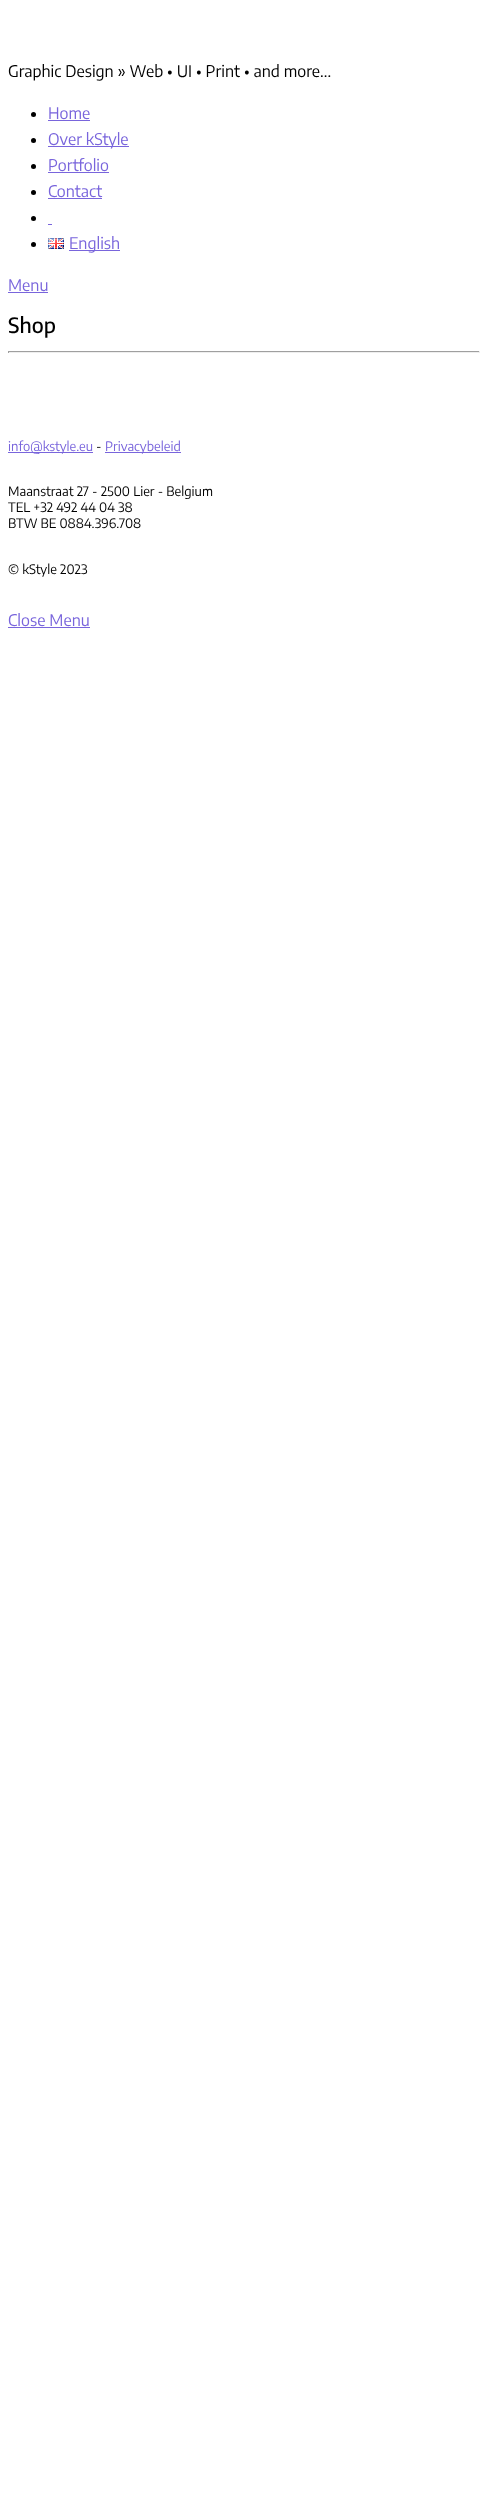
<?xml version="1.0" encoding="UTF-8"?>
<svg xmlns="http://www.w3.org/2000/svg" width="488" height="2516">
    <rect width="100%" height="100%" fill="#FFFFFF"/>
    <text x="8" y="77" font-family="Encode Sans Condensed" font-size="16" fill="#000000">Graphic Design » Web • UI • Print • and more...</text>
    <circle cx="33.5" cy="114.5" r="2.5" fill="#000000"/>
    <text x="48" y="119" font-family="Encode Sans Condensed" font-size="16" fill="#7965DC">Home</text>
    <rect x="48" y="120" width="42" height="1" fill="#7965DC"/>
    <circle cx="33.5" cy="140.5" r="2.5" fill="#000000"/>
    <rect x="48" y="146" width="81" height="1" fill="#7965DC"/>
    <text x="48" y="145" font-family="Encode Sans Condensed" font-size="16" fill="#7965DC">Over kStyle</text>
    <circle cx="33.5" cy="166.5" r="2.5" fill="#000000"/>
    <text x="48" y="171" font-family="Encode Sans Condensed" font-size="16" fill="#7965DC">Portfolio</text>
    <rect x="48" y="172" width="61" height="1" fill="#7965DC"/>
    <circle cx="33.5" cy="192.5" r="2.5" fill="#000000"/>
    <text x="48" y="197" font-family="Encode Sans Condensed" font-size="16" fill="#7965DC">Contact</text>
    <rect x="48" y="198" width="54" height="1" fill="#7965DC"/>
    <circle cx="33.5" cy="218.5" r="2.5" fill="#000000"/>
    <rect x="48" y="224" width="4" height="1" fill="#7965DC"/>
    <circle cx="33.5" cy="244.5" r="2.5" fill="#000000"/>
    <image x="48" y="238" width="16" height="11" href="img_01.png"/>
    <rect x="69" y="250" width="51" height="1" fill="#7965DC"/>
    <text x="69" y="249" font-family="Encode Sans Condensed" font-size="16" fill="#7965DC">English</text>
    <text x="8" y="291" font-family="Encode Sans Condensed" font-size="16" fill="#7965DC">Menu</text>
    <rect x="8" y="292" width="40" height="1" fill="#7965DC"/>
    <text x="8" y="333" font-family="Encode Sans Condensed" font-size="21" font-weight="500" fill="#000000">Shop</text>
    <rect x="8" y="351" width="472" height="1" fill="#9F9F9F"/>
    <rect x="479" y="351" width="1" height="2" fill="#EEEEEE"/>
    <rect x="8" y="352" width="472" height="1" fill="#EEEEEE"/>
    <rect x="8" y="351" width="1" height="2" fill="#9F9F9F"/>
    <rect x="8" y="452" width="85" height="1" fill="#7965DC"/>
    <text x="8" y="451" font-family="Encode Sans Condensed" font-size="13" fill="#7965DC">info@kstyle.eu</text>
    <text x="96" y="451" font-family="Encode Sans Condensed" font-size="13" fill="#000000">-</text>
    <rect x="105" y="452" width="76" height="1" fill="#7965DC"/>
    <text x="105" y="451" font-family="Encode Sans Condensed" font-size="13" fill="#7965DC">Privacybeleid</text>
    <text font-family="Encode Sans Condensed" font-size="13" fill="#000000">
        <tspan x="8" y="496">Maanstraat 27 - 2500 Lier - Belgium</tspan>
        <tspan x="8" y="512">TEL +32 492 44 04 38</tspan>
        <tspan x="8" y="528">BTW BE 0884.396.708</tspan>
    </text>
    <text x="8" y="574" font-family="Encode Sans Condensed" font-size="13" fill="#000000">© kStyle 2023</text>
    <text x="8" y="626" font-family="Encode Sans Condensed" font-size="16" fill="#7965DC">Close Menu</text>
    <rect x="8" y="627" width="82" height="1" fill="#7965DC"/>
</svg>
